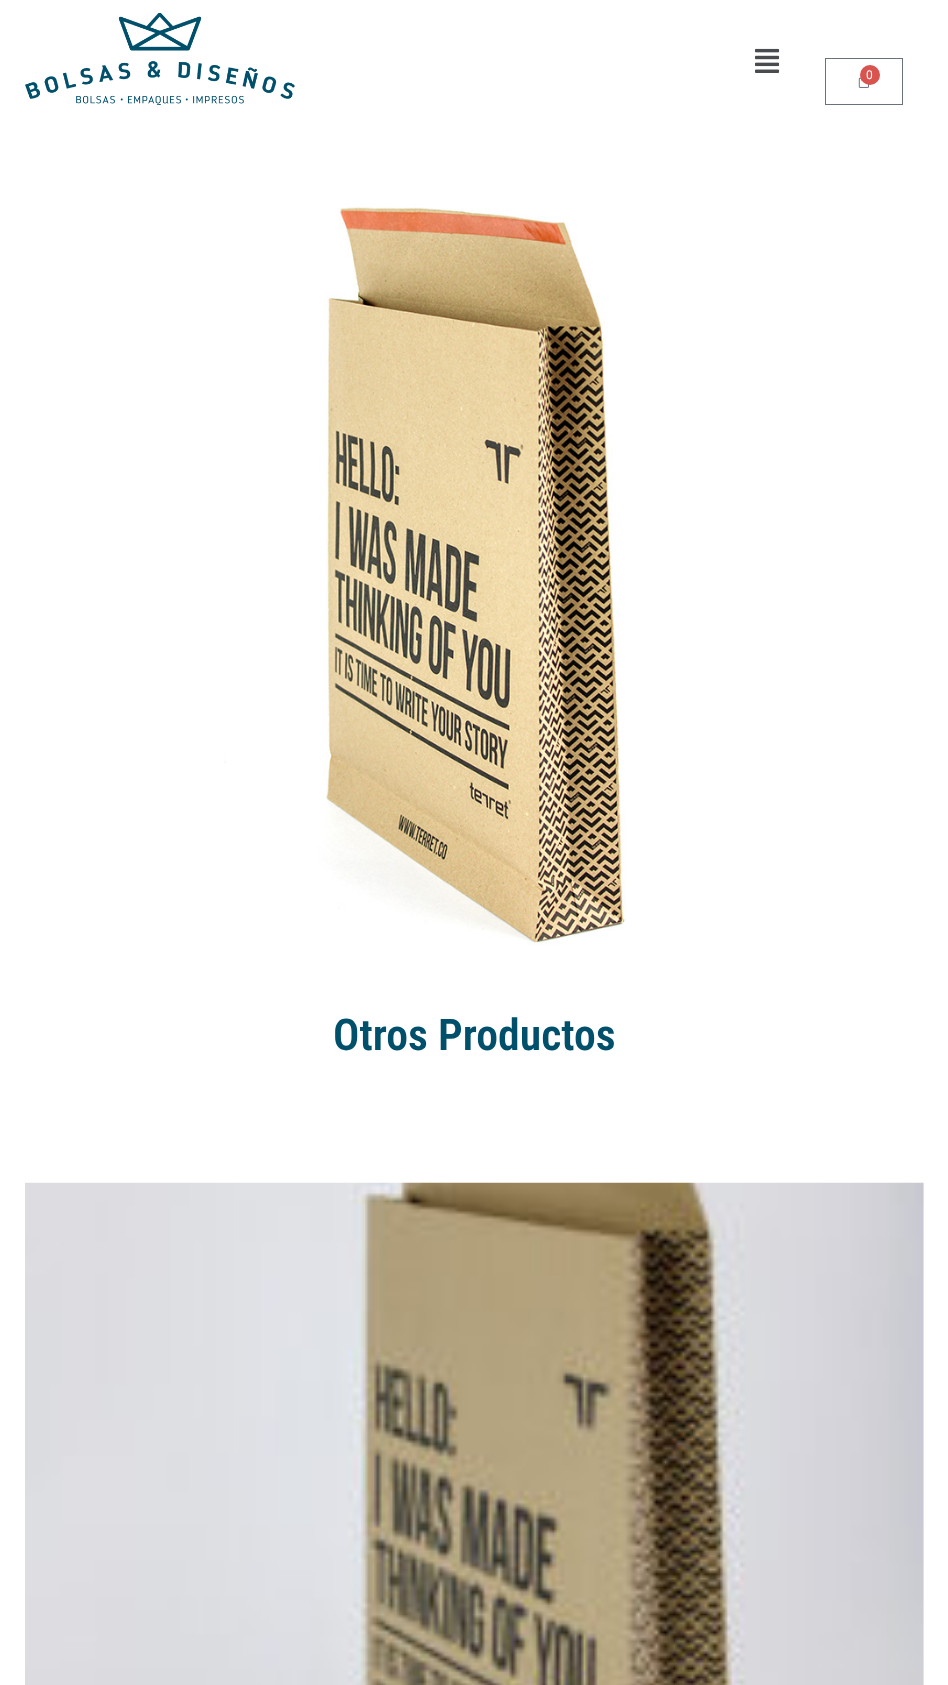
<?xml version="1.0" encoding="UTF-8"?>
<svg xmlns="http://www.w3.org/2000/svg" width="948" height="1685">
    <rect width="100%" height="100%" fill="#FFFFFF"/>
    <image x="25" y="13" width="270" height="93" href="img_01.png"/>
    <image x="755" y="48" width="25" height="25" href="img_02.png"/>
    <rect x="825.5" y="58.5" width="77" height="46" fill="none" stroke="#69727D"/>
    <image x="858" y="77" width="11" height="11" href="img_03.png"/>
    <circle cx="870" cy="75" r="10" fill="#D9534F"/>
    <text x="866" y="79" font-family="Roboto" font-size="12" fill="#FFFFFF">0</text>
    <image x="224" y="204" width="402" height="741" href="img_04.png"/>
    <text x="333" y="1050" font-family="Roboto Condensed" font-size="43.75" font-weight="600" fill="#00506C">Otros Productos</text>
    <image x="25" y="1182" width="899" height="503" href="img_05.png"/>
</svg>
